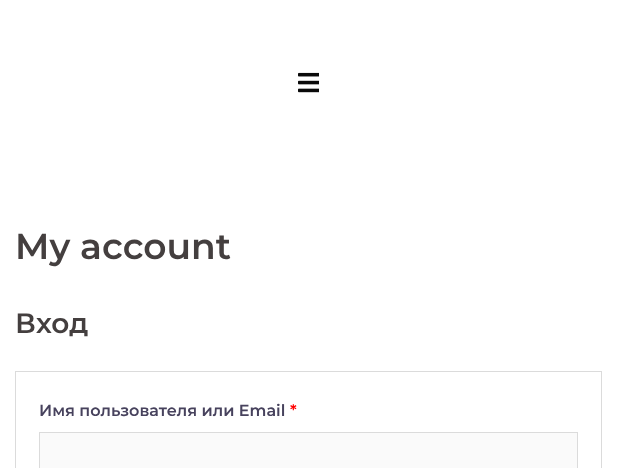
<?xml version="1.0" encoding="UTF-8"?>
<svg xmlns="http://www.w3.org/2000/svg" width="617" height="468">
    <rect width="100%" height="100%" fill="#FFFFFF"/>
    <image x="298" y="72" width="21" height="21" href="img_01.png"/>
    <text x="15" y="259" font-family="Montserrat" font-size="36" font-weight="600" fill="#443F3F">My account</text>
    <text x="15" y="333" font-family="Montserrat" font-size="28" font-weight="600" fill="#443F3F">Вход</text>
    <rect x="15.5" y="371.5" width="586" height="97" fill="none" stroke="#DBDBDB"/>
    <text x="39" y="416" font-family="Montserrat" font-size="16" font-weight="600" fill="#47425D">Имя пользователя или Email</text>
    <text x="290" y="416" font-family="Montserrat" font-size="16" font-weight="600" fill="#FF0000">*</text>
    <rect x="39.5" y="432.5" width="538" height="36" fill="#FAFAFA" stroke="#DBDBDB"/>
</svg>
